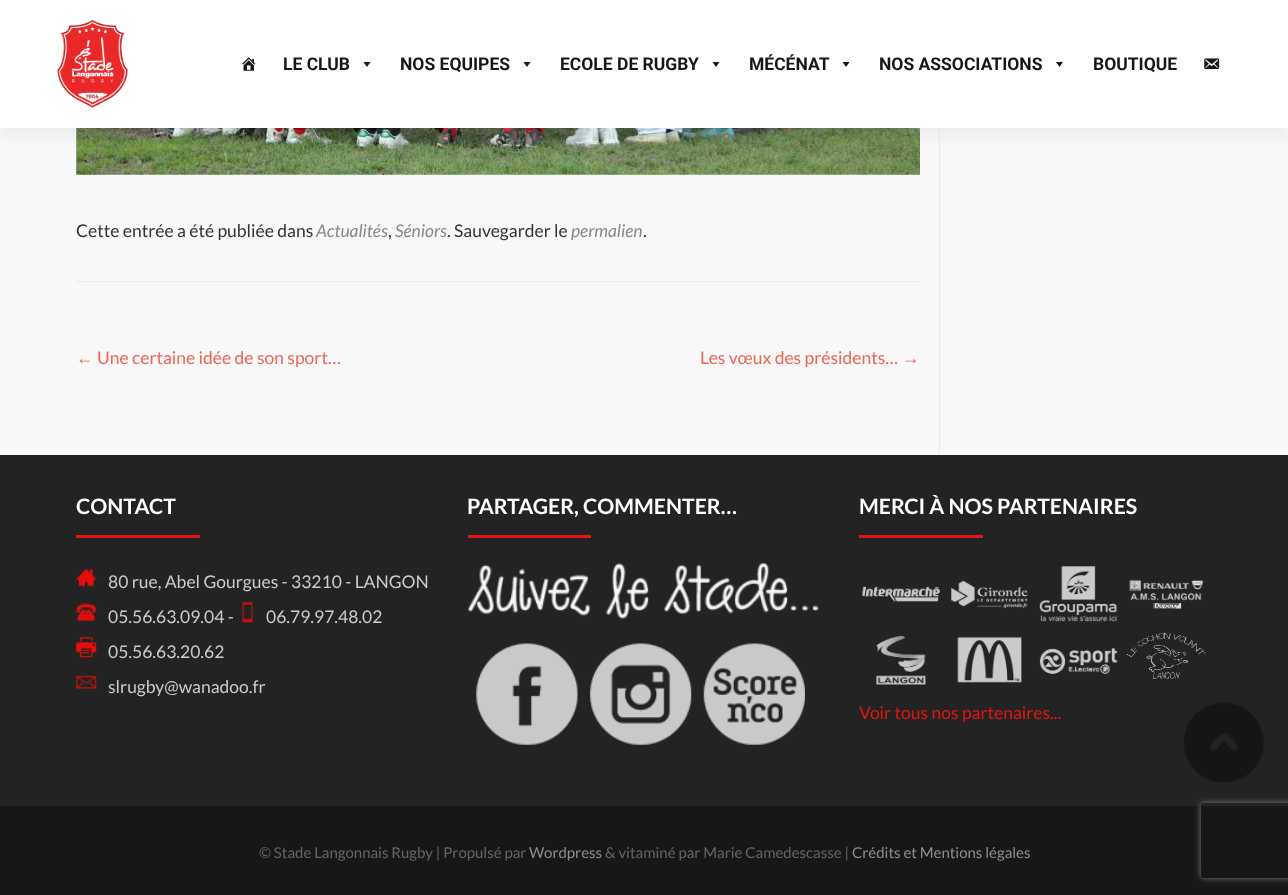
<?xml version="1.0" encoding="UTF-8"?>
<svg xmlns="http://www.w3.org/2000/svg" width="1288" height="895">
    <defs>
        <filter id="blur1" x="-50%" y="-200%" width="200%" height="500%"><feGaussianBlur stdDeviation="7"/></filter>
        <clipPath id="clip1"><path d="M 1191 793 H 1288 V 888 H 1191 Z M 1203.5 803 H 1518.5 C 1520 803 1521 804 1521 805.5 V 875.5 C 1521 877 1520 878 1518.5 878 H 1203.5 C 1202 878 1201 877 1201 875.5 V 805.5 C 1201 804 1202 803 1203.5 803 Z" clip-rule="evenodd"/></clipPath>
        <filter id="blur2" x="-50%" y="-200%" width="200%" height="500%"><feGaussianBlur stdDeviation="3"/></filter>
    </defs>
    <rect width="100%" height="100%" fill="#F8F8F8"/>
    <image x="76" y="128" width="844" height="47" href="img_04.png"/>
    <rect x="939" y="128" width="1" height="327" fill="#ECECEC"/>
    <rect x="0" y="6" width="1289" height="128" fill="#323232" fill-opacity="0.08" filter="url(#blur1)"/>
    <rect x="0" y="0" width="1288" height="128" fill="#FFFFFF"/>
    <image x="57" y="20" width="71" height="88" href="img_01.png"/>
    <image x="242" y="57" width="14" height="14" href="img_02.png"/>
    <text x="283" y="70" font-family="Roboto" font-size="17.5" font-weight="700" fill="#171717">LE CLUB</text>
    <path d="M 370.5 62 L 367 67 L 363.5 62 Z" fill="#171717"/>
    <text x="400" y="70" font-family="Roboto" font-size="17.5" font-weight="700" fill="#171717">NOS EQUIPES</text>
    <path d="M 530.5 62 L 527 67 L 523.5 62 Z" fill="#171717"/>
    <text x="560" y="70" font-family="Roboto" font-size="17.5" font-weight="700" fill="#171717">ECOLE DE RUGBY</text>
    <path d="M 719.5 62 L 716 67 L 712.5 62 Z" fill="#171717"/>
    <text x="749" y="70" font-family="Roboto" font-size="17.5" font-weight="700" fill="#171717">MÉCÉNAT</text>
    <path d="M 849.5 62 L 846 67 L 842.5 62 Z" fill="#171717"/>
    <text x="879" y="70" font-family="Roboto" font-size="17.5" font-weight="700" fill="#171717">NOS ASSOCIATIONS</text>
    <path d="M 1063 62 L 1059.5 67 L 1056 62 Z" fill="#171717"/>
    <text x="1093" y="70" font-family="Roboto" font-size="17.5" font-weight="700" fill="#171717">BOUTIQUE</text>
    <image x="1204" y="58" width="16" height="11" href="img_03.png"/>
    <rect x="76" y="281" width="844" height="1" fill="#ECECEC"/>
    <text x="76" y="237" font-family="Lato" font-size="17.5" fill="#333333">Cette entrée a été publiée dans</text>
    <text x="316" y="237" font-family="Lato" font-size="17.5" font-style="italic" fill="#888888">Actualités</text>
    <text x="388" y="237" font-family="Lato" font-size="17.5" fill="#333333">,</text>
    <text x="395" y="237" font-family="Lato" font-size="17.5" font-style="italic" fill="#888888">Séniors</text>
    <text x="447" y="237" font-family="Lato" font-size="17.5" fill="#333333">. Sauvegarder le</text>
    <text x="571" y="237" font-family="Lato" font-size="17.5" font-style="italic" fill="#888888">permalien</text>
    <text x="643" y="237" font-family="Lato" font-size="17.5" fill="#333333">.</text>
    <text x="76" y="364" font-family="Liberation Sans" font-size="17.5" fill="#E96656">←</text>
    <text x="97" y="364" font-family="Lato" font-size="17.5" fill="#E96656">Une certaine idée de son sport…</text>
    <text x="700" y="364" font-family="Lato" font-size="17.5" fill="#E96656">Les vœux des présidents…</text>
    <text x="902" y="364" font-family="Liberation Sans" font-size="17.5" fill="#E96656">→</text>
    <rect x="0" y="806" width="1288" height="89" fill="#171717"/>
    <rect x="0" y="455" width="1288" height="351" fill="#232323"/>
    <text x="76" y="514" font-family="Lato" font-size="21.25" font-weight="700" fill="#FFFFFF">CONTACT</text>
    <rect x="76" y="535" width="124" height="3" fill="#E31613"/>
    <image x="76" y="568" width="21" height="19" href="img_05.png"/>
    <text x="108" y="588" font-family="Lato" font-size="17.5" fill="#CCCCCC">80 rue, Abel Gourgues - 33210 - LANGON</text>
    <image x="76" y="603" width="21" height="19" href="img_06.png"/>
    <text x="108" y="623" font-family="Lato" font-size="17.5" fill="#CCCCCC">05.56.63.09.04 -</text>
    <image x="242" y="602" width="11" height="21" href="img_07.png"/>
    <text x="266" y="623" font-family="Lato" font-size="17.5" fill="#CCCCCC">06.79.97.48.02</text>
    <image x="76" y="637" width="21" height="21" href="img_08.png"/>
    <text x="108" y="658" font-family="Lato" font-size="17.5" fill="#CCCCCC">05.56.63.20.62</text>
    <image x="76" y="675" width="21" height="14" href="img_09.png"/>
    <text x="108" y="693" font-family="Lato" font-size="17.5" fill="#CCCCCC">slrugby@wanadoo.fr</text>
    <text x="467" y="514" font-family="Lato" font-size="21.25" font-weight="700" fill="#FFFFFF">PARTAGER, COMMENTER…</text>
    <rect x="468" y="535" width="123" height="3" fill="#E31613"/>
    <image x="467" y="563" width="352" height="56" href="img_10.png"/>
    <image x="476" y="643" width="102" height="102" href="img_11.png"/>
    <image x="589" y="643" width="103" height="102" href="img_12.png"/>
    <image x="703" y="643" width="102" height="102" href="img_13.png"/>
    <text x="859" y="514" font-family="Lato" font-size="21.25" font-weight="700" fill="#FFFFFF">MERCI À NOS PARTENAIRES</text>
    <rect x="859" y="535" width="124" height="3" fill="#E31613"/>
    <image x="862" y="586" width="78" height="16" href="img_14.png"/>
    <image x="951" y="580" width="77" height="29" href="img_15.png"/>
    <image x="1039" y="566" width="78" height="56" href="img_16.png"/>
    <image x="1129" y="579" width="75" height="30" href="img_17.png"/>
    <image x="875" y="636" width="51" height="49" href="img_18.png"/>
    <image x="957" y="636" width="65" height="47" href="img_19.png"/>
    <image x="1039" y="648" width="79" height="26" href="img_20.png"/>
    <image x="1126" y="632" width="80" height="47" href="img_21.png"/>
    <text x="859" y="719" font-family="Lato" font-size="17.5" fill="#E31613">Voir tous nos partenaires...</text>
    <text x="259" y="858" font-family="Lato" font-size="15" fill="#666666">© Stade Langonnais Rugby | Propulsé par</text>
    <text x="529" y="858" font-family="Lato" font-size="15" fill="#8F8F8F">Wordpress</text>
    <text x="605" y="858" font-family="Lato" font-size="15" fill="#666666">&amp; vitaminé par Marie Camedescasse |</text>
    <text x="852" y="858" font-family="Lato" font-size="15" fill="#8F8F8F">Crédits et Mentions légales</text>
    <image x="1184" y="702" width="80" height="81" href="img_22.png"/>
    <g clip-path="url(#clip1)">
        <rect x="1201" y="803" width="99" height="75" rx="2.5" fill="#808080" filter="url(#blur2)"/>
    </g>
</svg>
